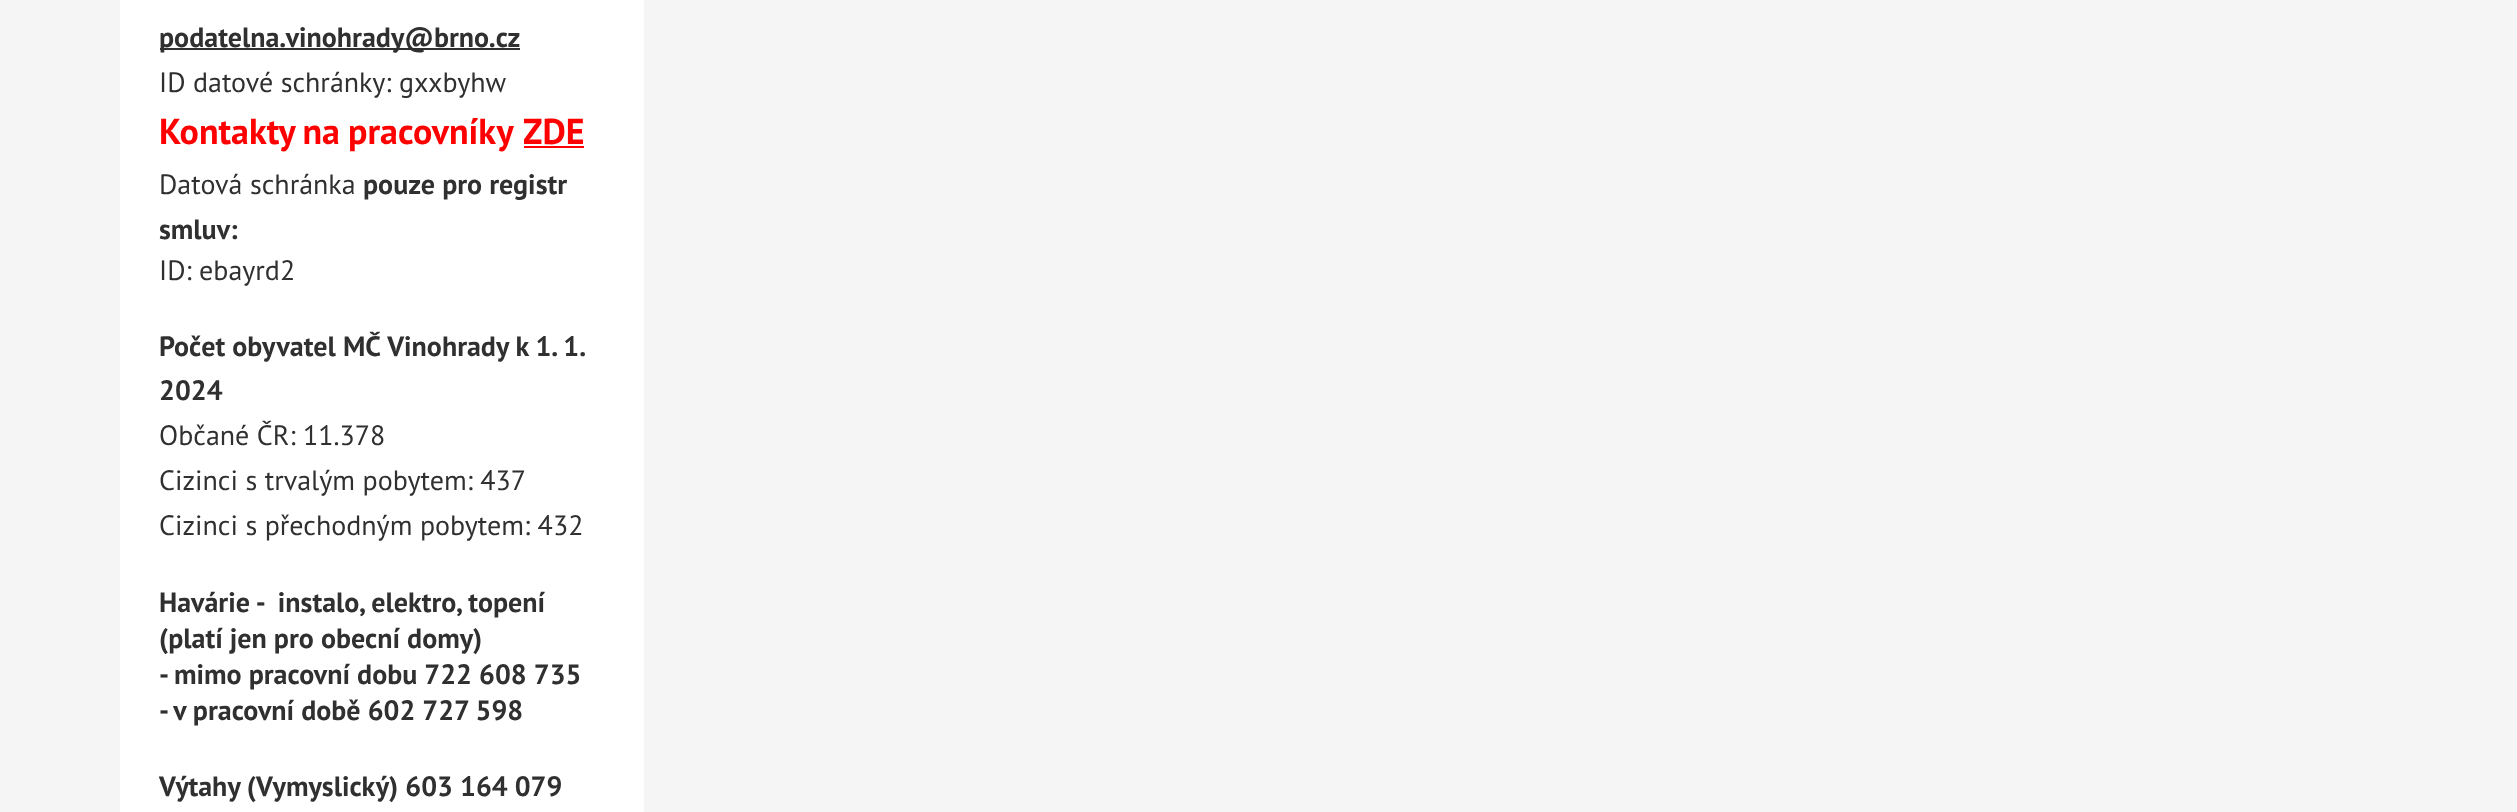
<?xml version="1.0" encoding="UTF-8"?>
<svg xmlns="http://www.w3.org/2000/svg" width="2517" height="812">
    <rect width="100%" height="100%" fill="#F5F5F5"/>
    <rect x="120" y="0" width="524" height="812" fill="#FFFFFF"/>
    <rect x="160" y="48" width="360" height="2" fill="#303030"/>
    <text x="159" y="47" font-family="PT Sans" font-size="28" font-weight="700" fill="#303030">podatelna.vinohrady@brno.cz</text>
    <text x="159" y="92" font-family="PT Sans" font-size="28" fill="#303030">ID datové schránky: gxxbyhw</text>
    <text x="159" y="144" word-spacing="-1" font-family="PT Sans" font-size="36" font-weight="700" fill="#FF0000">Kontakty na pracovníky</text>
    <text x="523" y="144" font-family="PT Sans" font-size="36" font-weight="700" fill="#FF0000">ZDE</text>
    <rect x="524" y="146" width="60" height="2" fill="#FF0000"/>
    <text x="159" y="194" font-family="PT Sans" font-size="28" fill="#303030">Datová schránka</text>
    <text x="363" y="194" font-family="PT Sans" font-size="28" font-weight="700" fill="#303030">pouze pro registr</text>
    <text x="159" y="239" font-family="PT Sans" font-size="28" font-weight="700" fill="#303030">smluv:</text>
    <text x="159" y="280" font-family="PT Sans" font-size="28" fill="#303030">ID: ebayrd2</text>
    <text font-family="PT Sans" font-size="28" font-weight="700" fill="#303030">
        <tspan x="159" y="356">Počet obyvatel MČ Vinohrady k 1. 1.</tspan>
        <tspan x="159" y="400">2024</tspan>
    </text>
    <text font-family="PT Sans" font-size="28" fill="#303030">
        <tspan x="159" y="445">Občané ČR: 11.378</tspan>
        <tspan x="159" y="490">Cizinci s trvalým pobytem: 437</tspan>
        <tspan x="159" y="535">Cizinci s přechodným pobytem: 432</tspan>
    </text>
    <text font-family="PT Sans" font-size="28" font-weight="700" fill="#303030" xml:space="preserve"><tspan x="159" y="612">Havárie -  instalo, elektro, topení</tspan><tspan x="159" y="648">(platí jen pro obecní domy)</tspan><tspan x="159" y="684">- mimo pracovní dobu 722 608 735</tspan><tspan x="159" y="720">- v pracovní době 602 727 598</tspan></text>
    <text x="159" y="796" font-family="PT Sans" font-size="28" font-weight="700" fill="#303030">Výtahy (Vymyslický) 603 164 079</text>
</svg>
